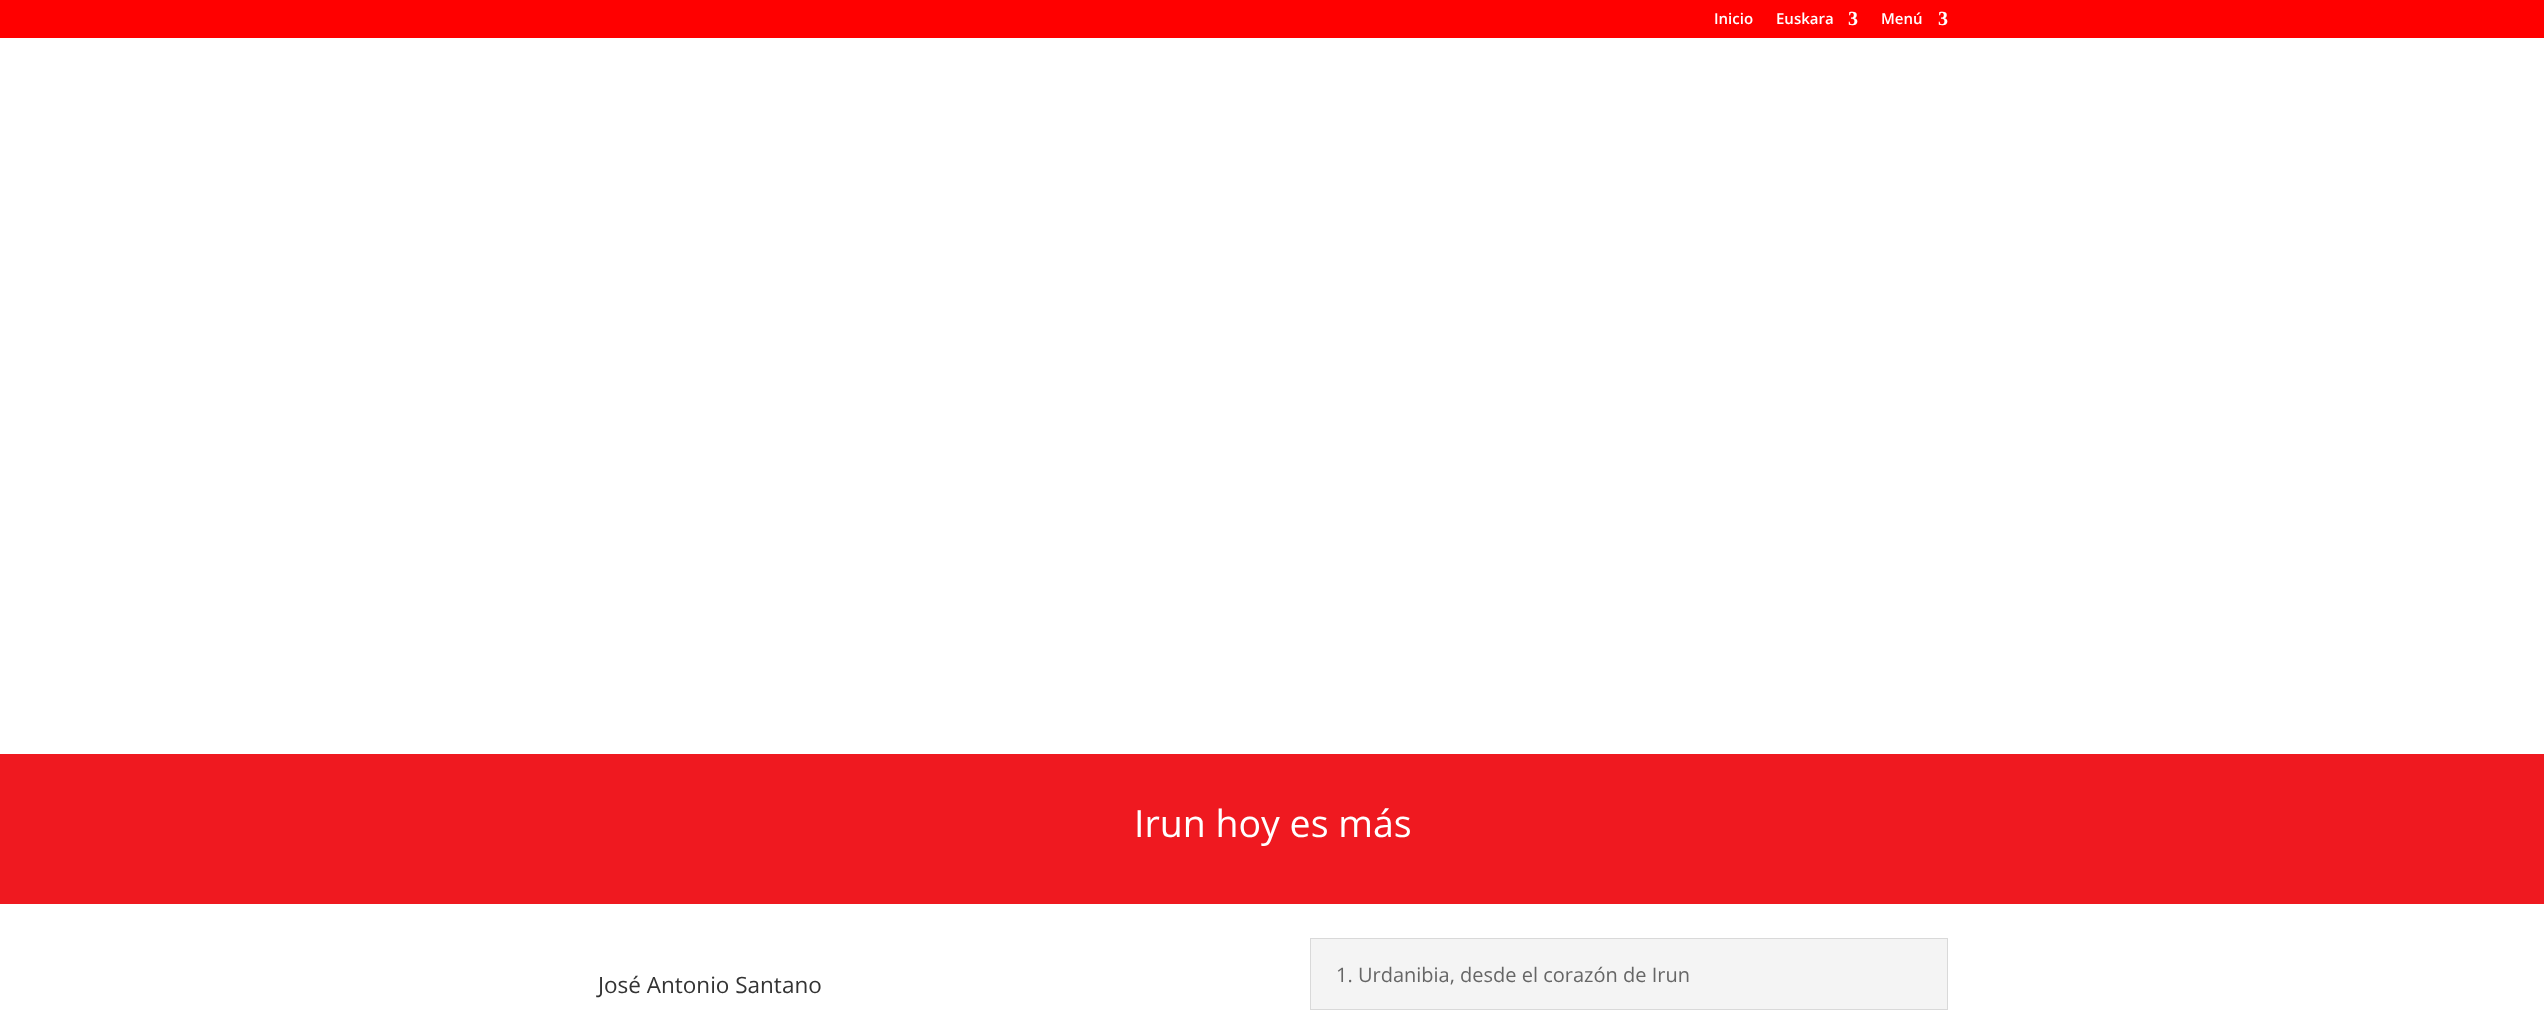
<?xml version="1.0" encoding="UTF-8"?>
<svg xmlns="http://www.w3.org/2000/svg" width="2544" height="1015">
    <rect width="100%" height="100%" fill="#FFFFFF"/>
    <rect x="0" y="0" width="2544" height="38" fill="#FF0000"/>
    <text x="1714" y="24" font-family="Open Sans" font-size="15" font-weight="600" fill="#FFFFFF">Inicio</text>
    <text x="1776" y="24" font-family="Open Sans" font-size="15" font-weight="600" fill="#FFFFFF">Euskara</text>
    <text x="1848" y="25" font-family="Liberation Serif" font-size="20" font-weight="700" fill="#FFFFFF">3</text>
    <text x="1881" y="24" font-family="Open Sans" font-size="15" font-weight="600" fill="#FFFFFF">Menú</text>
    <text x="1938" y="25" font-family="Liberation Serif" font-size="20" font-weight="700" fill="#FFFFFF">3</text>
    <rect x="0" y="754" width="2544" height="150" fill="#EF1920"/>
    <text x="1134" y="837" font-family="Open Sans" font-size="37.5" fill="#FFFFFF">Irun hoy es más</text>
    <text x="598" y="993" font-family="Open Sans" font-size="22.5" fill="#333333">José Antonio Santano</text>
    <rect x="1310.5" y="938.5" width="637" height="71" fill="#F4F4F4" stroke="#D9D9D9"/>
    <text x="1336" y="982" font-family="Open Sans" font-size="20" fill="#666666">1. Urdanibia, desde el corazón de Irun</text>
</svg>
